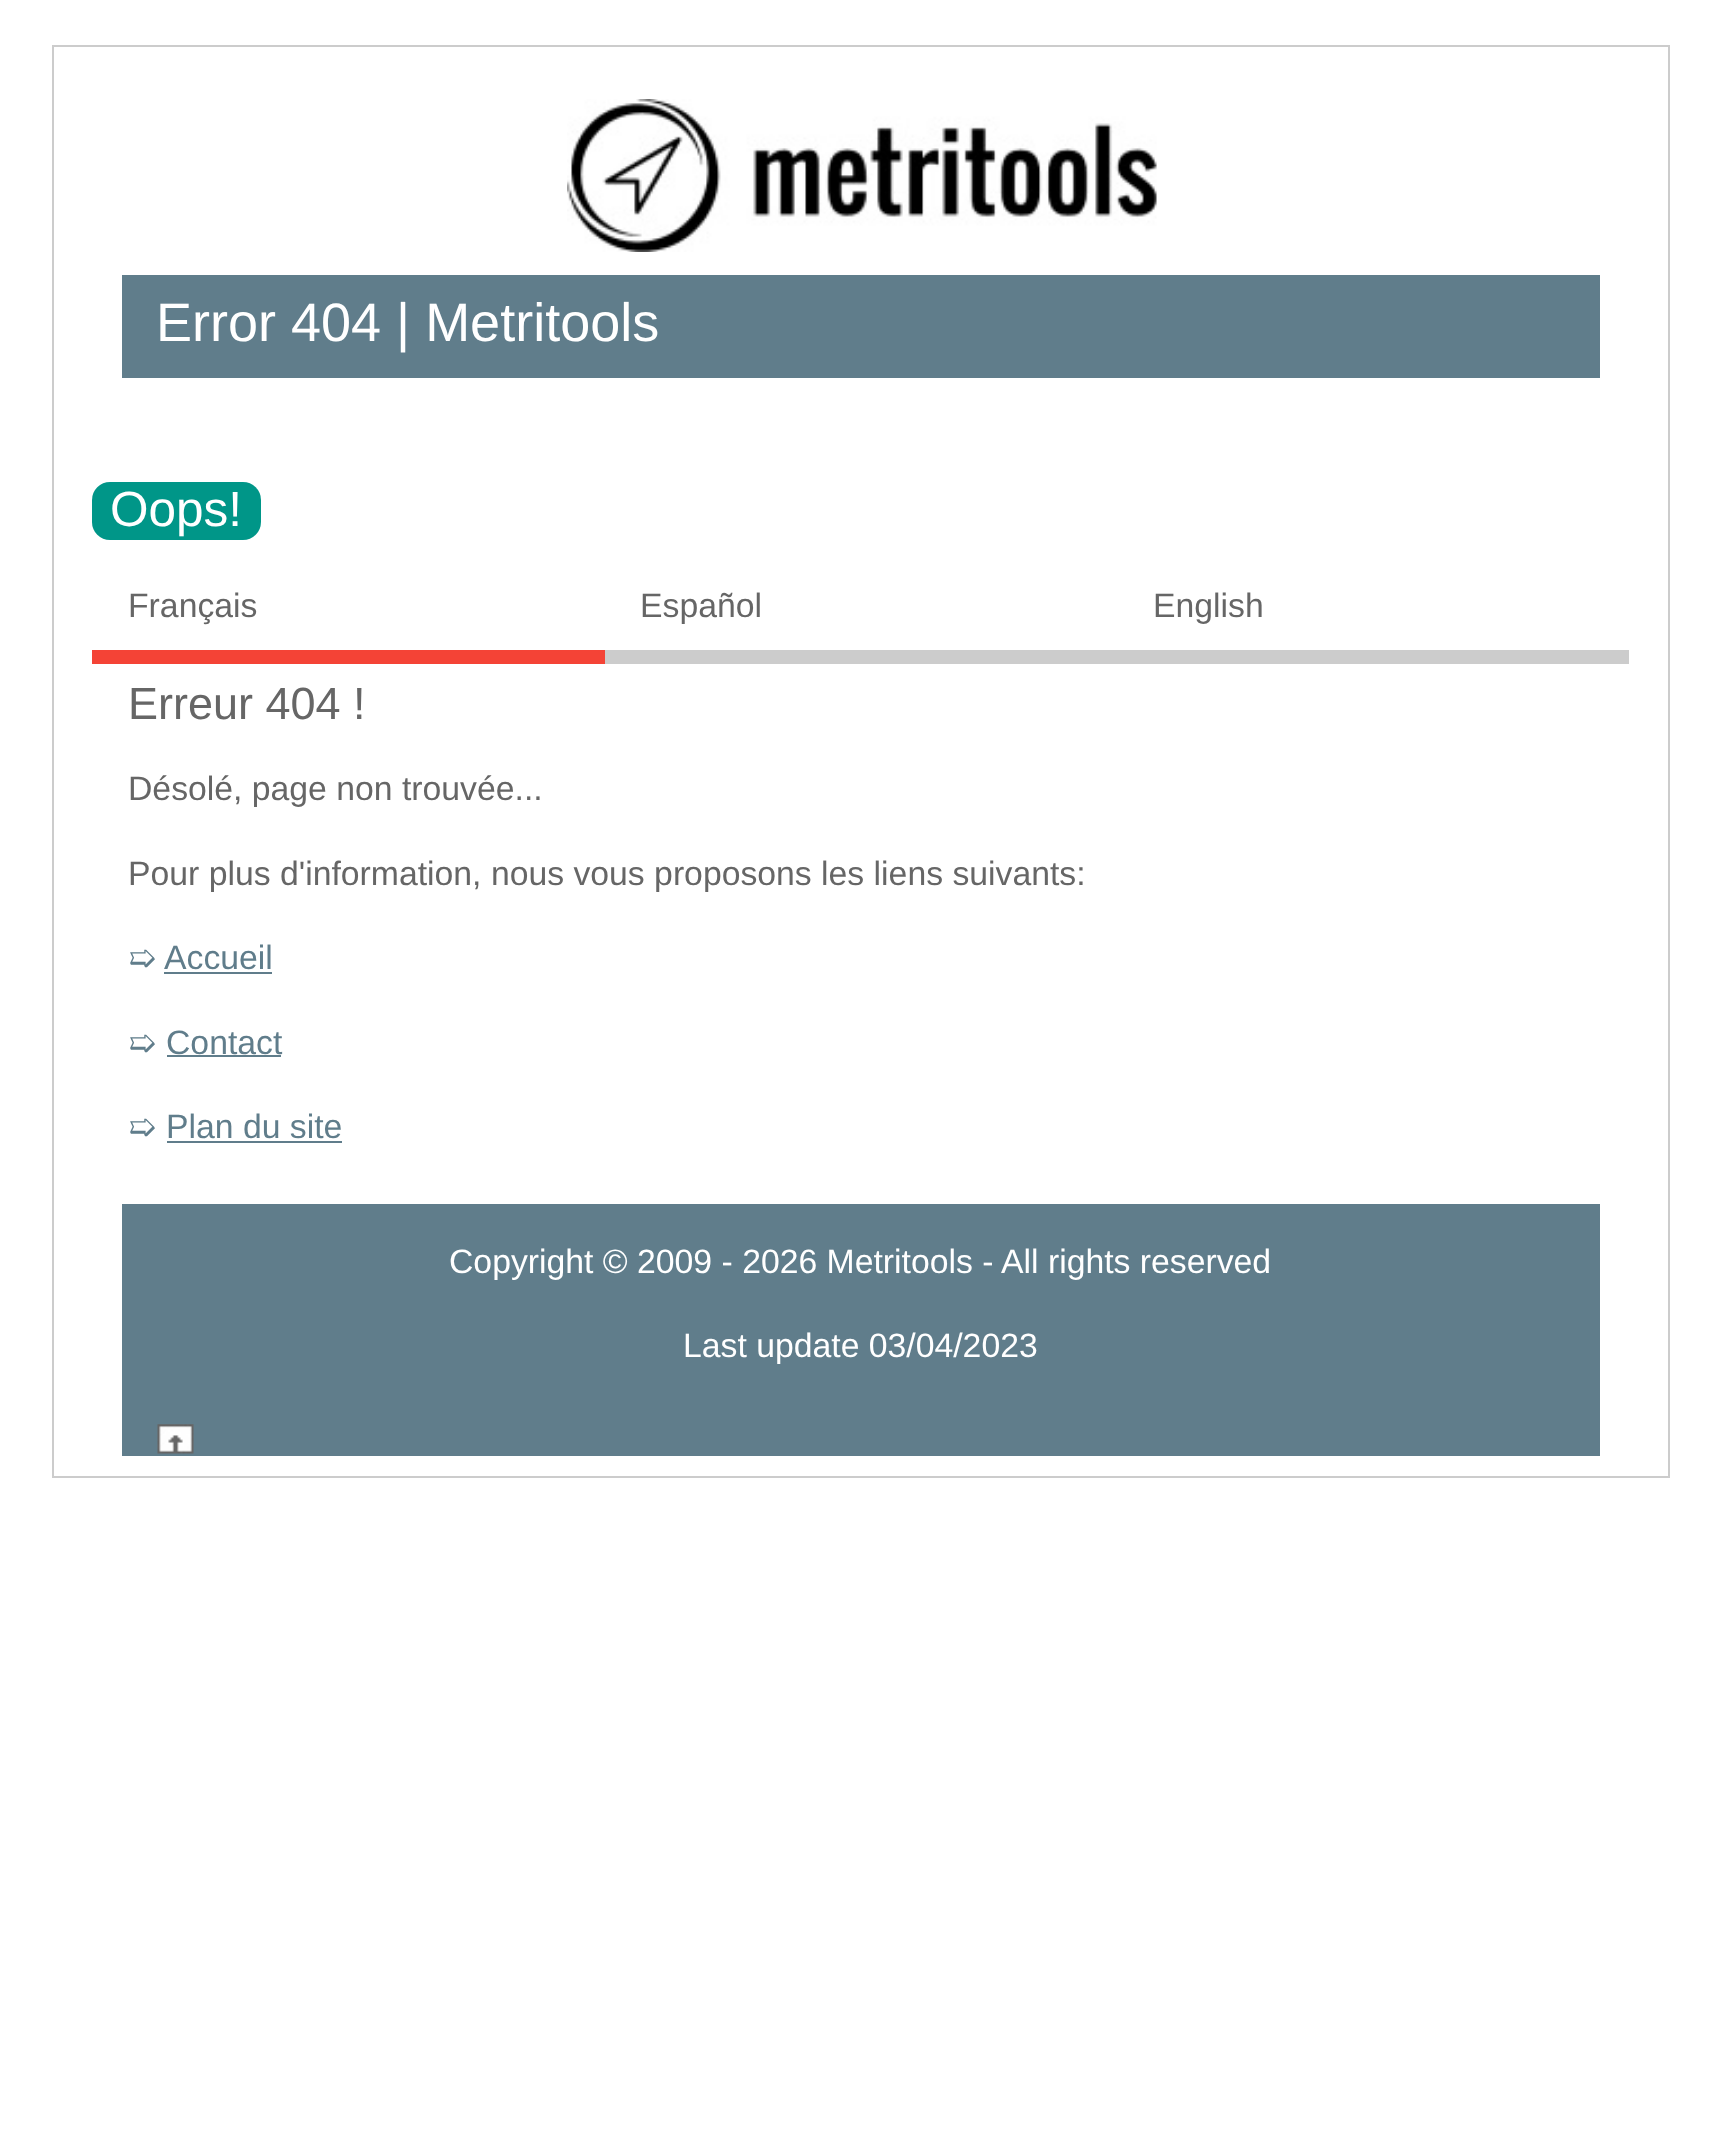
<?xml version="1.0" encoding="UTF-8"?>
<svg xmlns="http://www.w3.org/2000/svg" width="1720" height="2156">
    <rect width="100%" height="100%" fill="#FFFFFF"/>
    <rect x="53" y="46" width="1616" height="1431" fill="none" stroke="#CCCCCC" stroke-width="2"/>
    <image x="567" y="99" width="590" height="153" href="img_01.png"/>
    <rect x="122" y="275" width="1478" height="103" fill="#607D8B"/>
    <text x="156" y="341" font-family="Liberation Sans" font-size="54" fill="#FFFFFF">Error 404 | Metritools</text>
    <rect x="92" y="482" width="169" height="58" rx="18" fill="#009688"/>
    <text x="110" y="526" font-family="Liberation Sans" font-size="49.5" fill="#FFFFFF">Oops!</text>
    <rect x="92" y="650" width="513" height="14" fill="#F44336"/>
    <text x="128" y="617" font-family="Liberation Sans" font-size="33.75" fill="#666666">Français</text>
    <rect x="605" y="650" width="1024" height="14" fill="#CCCCCC"/>
    <text x="640" y="617" font-family="Liberation Sans" font-size="33.75" fill="#666666">Español</text>
    <text x="1153" y="617" font-family="Liberation Sans" font-size="33.75" fill="#666666">English</text>
    <text x="128" y="719" font-family="Liberation Sans" font-size="45" fill="#666666">Erreur 404 !</text>
    <text x="128" y="800" font-family="Liberation Sans" font-size="33.75" fill="#666666">Désolé, page non trouvée...</text>
    <text x="128" y="885" font-family="Liberation Sans" font-size="33.75" fill="#666666">Pour plus d'information, nous vous proposons les liens suivants:</text>
    <text x="128" y="969" font-family="DejaVu Sans" font-size="33.75" fill="#607D8B">➯</text>
    <text x="164" y="969" font-family="Liberation Sans" font-size="33.75" fill="#607D8B">Accueil</text>
    <rect x="164" y="972" width="108" height="2" fill="#607D8B"/>
    <text x="128" y="1054" font-family="DejaVu Sans" font-size="33.75" fill="#607D8B">➯</text>
    <text x="166" y="1054" font-family="Liberation Sans" font-size="33.75" fill="#607D8B">Contact</text>
    <rect x="167" y="1055" width="114" height="2" fill="#607D8B"/>
    <text x="128" y="1138" font-family="DejaVu Sans" font-size="33.75" fill="#607D8B">➯</text>
    <text x="166" y="1138" font-family="Liberation Sans" font-size="33.75" fill="#607D8B">Plan du site</text>
    <rect x="167" y="1141" width="175" height="2" fill="#607D8B"/>
    <rect x="122" y="1204" width="1478" height="252" fill="#607D8B"/>
    <text x="449" y="1273" font-family="Liberation Sans" font-size="33.75" fill="#FFFFFF">Copyright © 2009 - 2026 Metritools - All rights reserved</text>
    <text x="683" y="1357" font-family="Liberation Sans" font-size="33.75" fill="#FFFFFF">Last update 03/04/2023</text>
    <image x="157" y="1424" width="37" height="30" href="img_02.png"/>
</svg>
